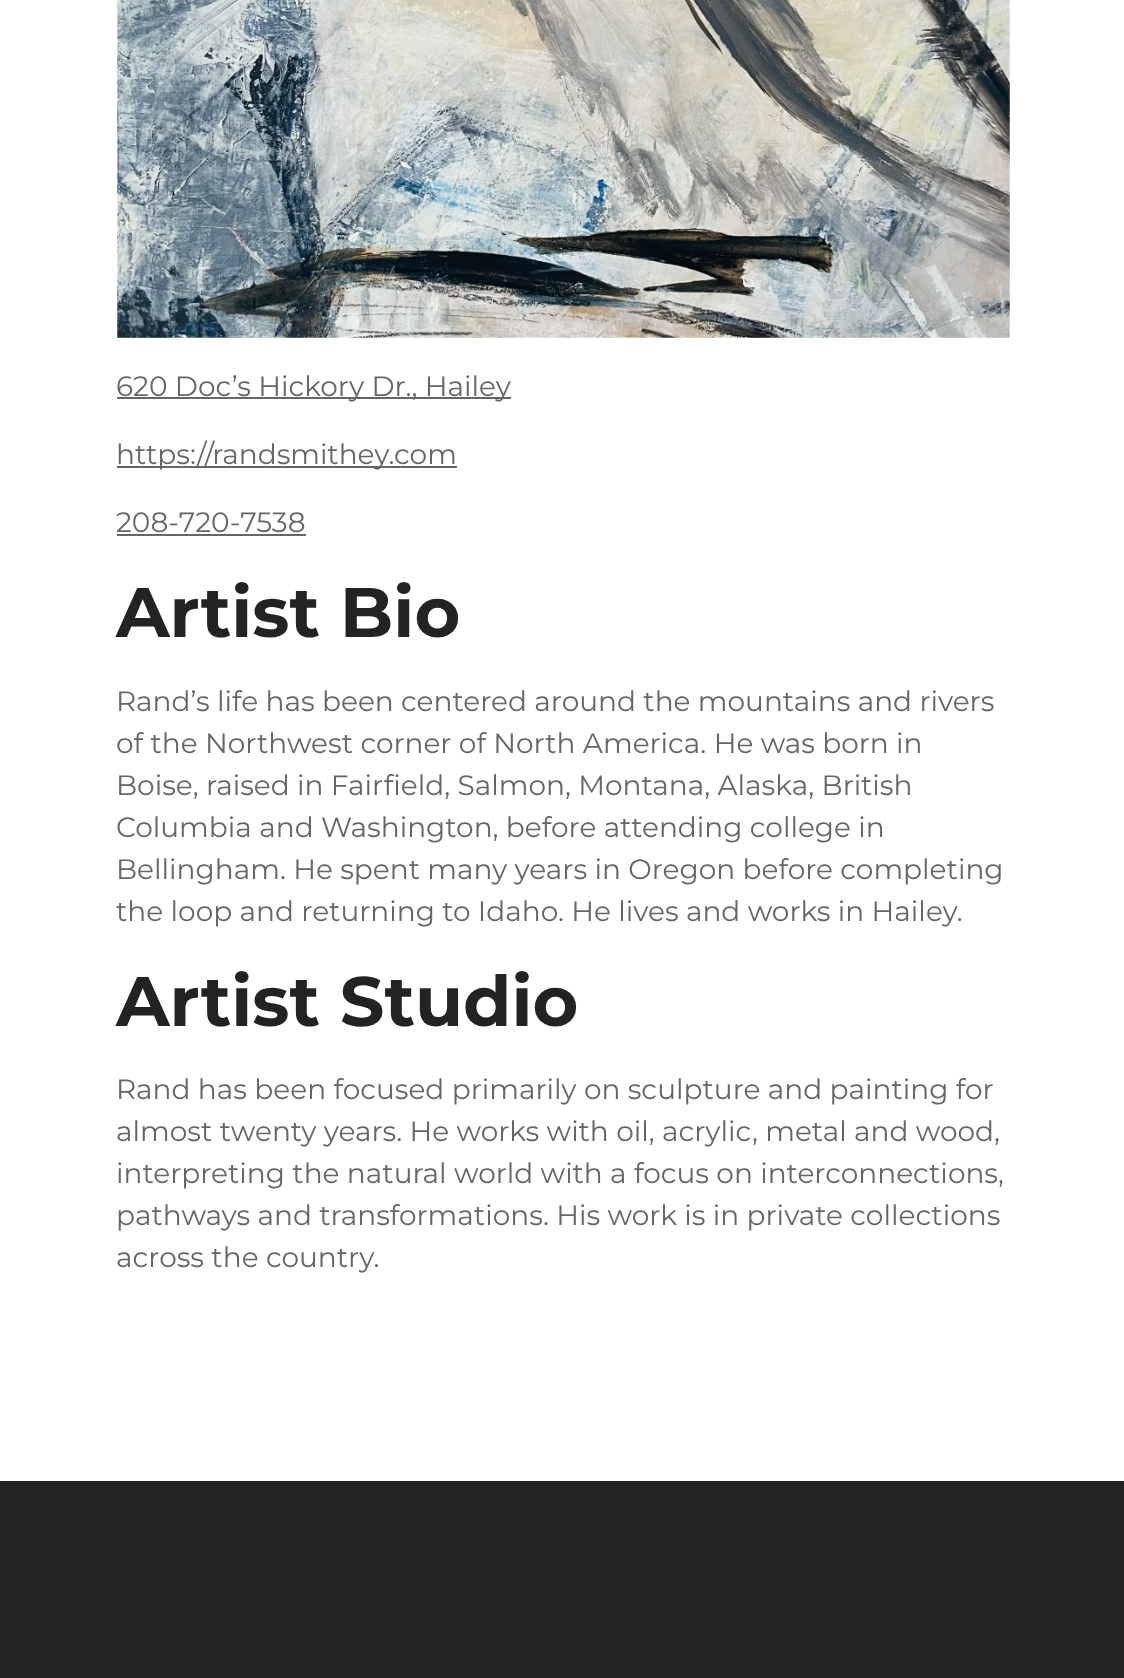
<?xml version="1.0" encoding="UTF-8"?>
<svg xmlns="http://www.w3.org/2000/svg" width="1124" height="1678">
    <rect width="100%" height="100%" fill="#FFFFFF"/>
    <image x="117" y="0" width="893" height="338" href="img_01.png"/>
    <rect x="117" y="397" width="394" height="2" fill="#666666"/>
    <text x="116" y="396" font-family="Montserrat" font-size="28" fill="#666666">620 Doc’s Hickory Dr., Hailey</text>
    <rect x="117" y="466" width="340" height="2" fill="#666666"/>
    <text x="116" y="464" font-family="Montserrat" font-size="28" fill="#666666">https://randsmithey.com</text>
    <text x="116" y="532" font-family="Montserrat" font-size="28" fill="#666666">208-720-7538</text>
    <rect x="117" y="534" width="189" height="2" fill="#666666"/>
    <text x="116" y="637" font-family="Montserrat" font-size="70" font-weight="700" fill="#232323">Artist Bio</text>
    <text font-family="Montserrat" font-size="28" fill="#666666">
        <tspan x="116" y="711">Rand’s life has been centered around the mountains and rivers</tspan>
        <tspan x="116" y="753">of the Northwest corner of North America. He was born in</tspan>
        <tspan x="116" y="795">Boise, raised in Fairfield, Salmon, Montana, Alaska, British</tspan>
        <tspan x="116" y="837">Columbia and Washington, before attending college in</tspan>
        <tspan x="116" y="879">Bellingham. He spent many years in Oregon before completing</tspan>
        <tspan x="116" y="921">the loop and returning to Idaho. He lives and works in Hailey.</tspan>
    </text>
    <text x="116" y="1026" font-family="Montserrat" font-size="70" font-weight="700" fill="#232323">Artist Studio</text>
    <text font-family="Montserrat" font-size="28" fill="#666666">
        <tspan x="116" y="1099">Rand has been focused primarily on sculpture and painting for</tspan>
        <tspan x="116" y="1141">almost twenty years. He works with oil, acrylic, metal and wood,</tspan>
        <tspan x="116" y="1183">interpreting the natural world with a focus on interconnections,</tspan>
        <tspan x="116" y="1225">pathways and transformations. His work is in private collections</tspan>
        <tspan x="116" y="1267">across the country.</tspan>
    </text>
    <rect x="0" y="1481" width="1124" height="197" fill="#232323"/>
</svg>
